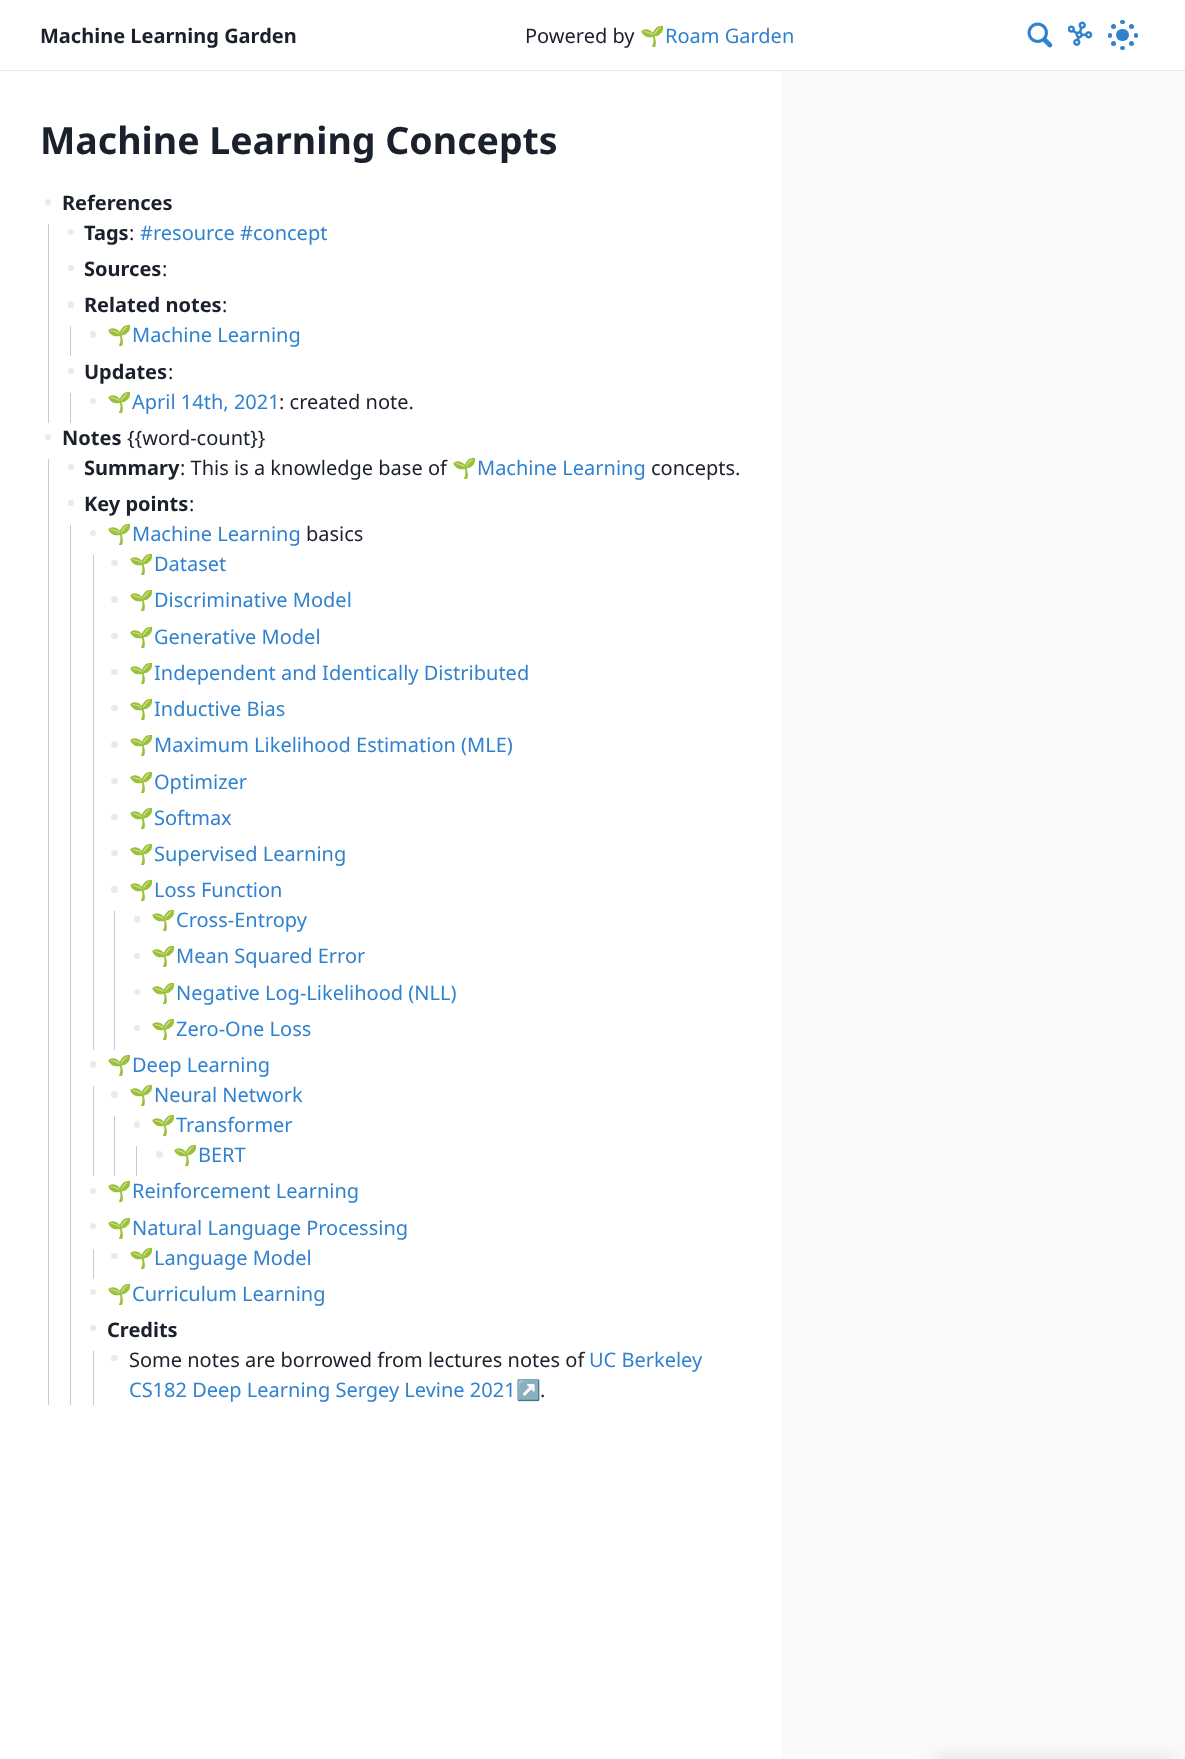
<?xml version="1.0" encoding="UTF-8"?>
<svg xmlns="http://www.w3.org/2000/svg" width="1185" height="1759">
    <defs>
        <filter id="blur1" x="-50%" y="-200%" width="200%" height="500%"><feGaussianBlur stdDeviation="9.5"/></filter>
    </defs>
    <rect width="100%" height="100%" fill="#FAFAFC"/>
    <rect x="0" y="0" width="1185" height="70" fill="#FFFFFF"/>
    <rect x="0" y="70" width="1185" height="1" fill="#E2E8F0"/>
    <text x="40" y="43" font-family="Noto Sans" font-size="20" font-weight="700" fill="#1A202C">Machine Learning Garden</text>
    <text x="525" y="43" font-family="Noto Sans" font-size="20" fill="#1A202C">Powered by</text>
    <text x="640" y="43" font-family="Noto Color Emoji" font-size="20" fill="#3182CE">🌱</text>
    <text x="665" y="43" font-family="Noto Sans" font-size="20" fill="#3182CE">Roam Garden</text>
    <image x="1027" y="22" width="26" height="26" href="img_01.png"/>
    <image x="1068" y="21" width="25" height="25" href="img_02.png"/>
    <circle cx="1113.5" cy="26.5" r="2.5" fill="#3182CE"/>
    <circle cx="1131.5" cy="26.5" r="2.5" fill="#3182CE"/>
    <circle cx="1113.5" cy="43.5" r="2.5" fill="#3182CE"/>
    <circle cx="1131.5" cy="43.5" r="2.5" fill="#3182CE"/>
    <rect x="1108" y="33" width="4" height="5" rx="2" fill="#3182CE"/>
    <rect x="1134" y="33" width="4" height="5" rx="2" fill="#3182CE"/>
    <rect x="1120" y="46" width="5" height="4" rx="2" fill="#3182CE"/>
    <rect x="1120" y="20" width="5" height="4" rx="2" fill="#3182CE"/>
    <rect x="1116" y="29" width="13" height="12" rx="6" fill="#3182CE"/>
    <rect x="0" y="71" width="781" height="1688" fill="#FFFFFF"/>
    <text x="40" y="154" font-family="Noto Sans" font-size="37.5" font-weight="700" fill="#1A202C">Machine Learning Concepts</text>
    <circle cx="48" cy="202" r="3" fill="#E3ECF2"/>
    <rect x="48" y="224" width="1" height="199" fill="#BFCCD6"/>
    <text x="62" y="210" font-family="Noto Sans" font-size="20" font-weight="700" fill="#1A202C">References</text>
    <circle cx="71" cy="232" r="3" fill="#E3ECF2"/>
    <text x="84" y="240" font-family="Noto Sans" font-size="20" font-weight="700" fill="#1A202C">Tags</text>
    <text x="129" y="240" font-family="Noto Sans" font-size="20" fill="#1A202C">:</text>
    <text x="140" y="240" font-family="Noto Sans" font-size="20" fill="#3182CE">#resource #concept</text>
    <circle cx="71" cy="268" r="3" fill="#E3ECF2"/>
    <text x="84" y="276" font-family="Noto Sans" font-size="20" font-weight="700" fill="#1A202C">Sources</text>
    <text x="162" y="276" font-family="Noto Sans" font-size="20" fill="#1A202C">:</text>
    <rect x="68" y="301" width="6" height="7" rx="3" fill="#E3ECF2"/>
    <rect x="70" y="326" width="1" height="30" fill="#BFCCD6"/>
    <text x="84" y="312" font-family="Noto Sans" font-size="20" font-weight="700" fill="#1A202C">Related notes</text>
    <text x="222" y="312" font-family="Noto Sans" font-size="20" fill="#1A202C">:</text>
    <rect x="90" y="331" width="6" height="7" rx="3" fill="#E3ECF2"/>
    <text x="107" y="342" font-family="Noto Color Emoji" font-size="20" fill="#3182CE">🌱</text>
    <text x="132" y="342" font-family="Noto Sans" font-size="20" fill="#3182CE">Machine Learning</text>
    <circle cx="71" cy="371" r="3" fill="#E3ECF2"/>
    <rect x="70" y="393" width="1" height="30" fill="#BFCCD6"/>
    <text x="84" y="379" font-family="Noto Sans" font-size="20" font-weight="700" fill="#1A202C">Updates</text>
    <text x="168" y="379" font-family="Noto Sans" font-size="20" fill="#1A202C">:</text>
    <circle cx="93" cy="401" r="3" fill="#E3ECF2"/>
    <text x="107" y="409" font-family="Noto Color Emoji" font-size="20" fill="#3182CE">🌱</text>
    <text x="132" y="409" font-family="Noto Sans" font-size="20" fill="#3182CE">April 14th, 2021</text>
    <text x="279" y="409" font-family="Noto Sans" font-size="20" fill="#1A202C">: created note.</text>
    <circle cx="48" cy="437" r="3" fill="#E3ECF2"/>
    <rect x="48" y="459" width="1" height="946" fill="#BFCCD6"/>
    <text x="62" y="445" font-family="Noto Sans" font-size="20" font-weight="700" fill="#1A202C">Notes</text>
    <text x="127" y="445" font-family="Noto Sans" font-size="20" fill="#1A202C">{{word-count}}</text>
    <circle cx="71" cy="467" r="3" fill="#E3ECF2"/>
    <text x="84" y="475" font-family="Noto Sans" font-size="20" font-weight="700" fill="#1A202C">Summary</text>
    <text x="180" y="475" font-family="Noto Sans" font-size="20" fill="#1A202C">: This is a knowledge base of</text>
    <text x="452" y="475" font-family="Noto Color Emoji" font-size="20" fill="#3182CE">🌱</text>
    <text x="477" y="475" font-family="Noto Sans" font-size="20" fill="#3182CE">Machine Learning</text>
    <text x="651" y="475" font-family="Noto Sans" font-size="20" fill="#1A202C">concepts.</text>
    <circle cx="71" cy="503" r="3" fill="#E3ECF2"/>
    <rect x="70" y="525" width="1" height="880" fill="#BFCCD6"/>
    <text x="84" y="511" font-family="Noto Sans" font-size="20" font-weight="700" fill="#1A202C">Key points</text>
    <text x="189" y="511" font-family="Noto Sans" font-size="20" fill="#1A202C">:</text>
    <circle cx="93" cy="533" r="3" fill="#E3ECF2"/>
    <rect x="93" y="555" width="1" height="495" fill="#BFCCD6"/>
    <text x="107" y="541" font-family="Noto Color Emoji" font-size="20" fill="#3182CE">🌱</text>
    <text x="132" y="541" font-family="Noto Sans" font-size="20" fill="#3182CE">Machine Learning</text>
    <text x="306" y="541" font-family="Noto Sans" font-size="20" fill="#1A202C">basics</text>
    <rect x="111" y="560" width="7" height="6" rx="3" fill="#E3ECF2"/>
    <text x="129" y="571" font-family="Noto Color Emoji" font-size="20" fill="#3182CE">🌱</text>
    <text x="154" y="571" font-family="Noto Sans" font-size="20" fill="#3182CE">Dataset</text>
    <circle cx="114.5" cy="599.5" r="3.5" fill="#E3ECF2"/>
    <text x="129" y="607" font-family="Noto Color Emoji" font-size="20" fill="#3182CE">🌱</text>
    <text x="154" y="607" font-family="Noto Sans" font-size="20" fill="#3182CE">Discriminative Model</text>
    <rect x="111" y="633" width="7" height="6" rx="3" fill="#E3ECF2"/>
    <text x="129" y="644" font-family="Noto Color Emoji" font-size="20" fill="#3182CE">🌱</text>
    <text x="154" y="644" font-family="Noto Sans" font-size="20" fill="#3182CE">Generative Model</text>
    <rect x="111" y="669" width="7" height="6" rx="3" fill="#E3ECF2"/>
    <text x="129" y="680" font-family="Noto Color Emoji" font-size="20" fill="#3182CE">🌱</text>
    <text x="154" y="680" font-family="Noto Sans" font-size="20" fill="#3182CE">Independent and Identically Distributed</text>
    <rect x="111" y="705" width="7" height="6" rx="3" fill="#E3ECF2"/>
    <text x="129" y="716" font-family="Noto Color Emoji" font-size="20" fill="#3182CE">🌱</text>
    <text x="154" y="716" font-family="Noto Sans" font-size="20" fill="#3182CE">Inductive Bias</text>
    <circle cx="114.5" cy="744.5" r="3.5" fill="#E3ECF2"/>
    <text x="129" y="752" font-family="Noto Color Emoji" font-size="20" fill="#3182CE">🌱</text>
    <text x="154" y="752" font-family="Noto Sans" font-size="20" fill="#3182CE">Maximum Likelihood Estimation (MLE)</text>
    <rect x="111" y="778" width="7" height="6" rx="3" fill="#E3ECF2"/>
    <text x="129" y="789" font-family="Noto Color Emoji" font-size="20" fill="#3182CE">🌱</text>
    <text x="154" y="789" font-family="Noto Sans" font-size="20" fill="#3182CE">Optimizer</text>
    <rect x="111" y="814" width="7" height="6" rx="3" fill="#E3ECF2"/>
    <text x="129" y="825" font-family="Noto Color Emoji" font-size="20" fill="#3182CE">🌱</text>
    <text x="154" y="825" font-family="Noto Sans" font-size="20" fill="#3182CE">Softmax</text>
    <rect x="111" y="850" width="7" height="6" rx="3" fill="#E3ECF2"/>
    <text x="129" y="861" font-family="Noto Color Emoji" font-size="20" fill="#3182CE">🌱</text>
    <text x="154" y="861" font-family="Noto Sans" font-size="20" fill="#3182CE">Supervised Learning</text>
    <circle cx="114.5" cy="889.5" r="3.5" fill="#E3ECF2"/>
    <rect x="114" y="911" width="1" height="139" fill="#BFCCD6"/>
    <text x="129" y="897" font-family="Noto Color Emoji" font-size="20" fill="#3182CE">🌱</text>
    <text x="154" y="897" font-family="Noto Sans" font-size="20" fill="#3182CE">Loss Function</text>
    <rect x="134" y="916" width="6" height="7" rx="3" fill="#E3ECF2"/>
    <text x="151" y="927" font-family="Noto Color Emoji" font-size="20" fill="#3182CE">🌱</text>
    <text x="176" y="927" font-family="Noto Sans" font-size="20" fill="#3182CE">Cross-Entropy</text>
    <circle cx="137" cy="956" r="3" fill="#E3ECF2"/>
    <text x="151" y="963" font-family="Noto Color Emoji" font-size="20" fill="#3182CE">🌱</text>
    <text x="176" y="963" font-family="Noto Sans" font-size="20" fill="#3182CE">Mean Squared Error</text>
    <circle cx="137" cy="992" r="3" fill="#E3ECF2"/>
    <text x="151" y="1000" font-family="Noto Color Emoji" font-size="20" fill="#3182CE">🌱</text>
    <text x="176" y="1000" font-family="Noto Sans" font-size="20" fill="#3182CE">Negative Log-Likelihood (NLL)</text>
    <circle cx="137" cy="1028" r="3" fill="#E3ECF2"/>
    <text x="151" y="1036" font-family="Noto Color Emoji" font-size="20" fill="#3182CE">🌱</text>
    <text x="176" y="1036" font-family="Noto Sans" font-size="20" fill="#3182CE">Zero-One Loss</text>
    <rect x="90" y="1061" width="6" height="7" rx="3" fill="#E3ECF2"/>
    <rect x="93" y="1086" width="1" height="90" fill="#BFCCD6"/>
    <text x="107" y="1072" font-family="Noto Color Emoji" font-size="20" fill="#3182CE">🌱</text>
    <text x="132" y="1072" font-family="Noto Sans" font-size="20" fill="#3182CE">Deep Learning</text>
    <circle cx="114.5" cy="1094.5" r="3.5" fill="#E3ECF2"/>
    <rect x="114" y="1116" width="1" height="60" fill="#BFCCD6"/>
    <text x="129" y="1102" font-family="Noto Color Emoji" font-size="20" fill="#3182CE">🌱</text>
    <text x="154" y="1102" font-family="Noto Sans" font-size="20" fill="#3182CE">Neural Network</text>
    <rect x="134" y="1121" width="6" height="7" rx="3" fill="#E3ECF2"/>
    <rect x="136" y="1146" width="1" height="30" fill="#BFCCD6"/>
    <text x="151" y="1132" font-family="Noto Color Emoji" font-size="20" fill="#3182CE">🌱</text>
    <text x="176" y="1132" font-family="Noto Sans" font-size="20" fill="#3182CE">Transformer</text>
    <circle cx="159.5" cy="1154.5" r="3.5" fill="#E3ECF2"/>
    <text x="173" y="1162" font-family="Noto Color Emoji" font-size="20" fill="#3182CE">🌱</text>
    <text x="198" y="1162" font-family="Noto Sans" font-size="20" fill="#3182CE">BERT</text>
    <circle cx="93" cy="1191" r="3" fill="#E3ECF2"/>
    <text x="107" y="1198" font-family="Noto Color Emoji" font-size="20" fill="#3182CE">🌱</text>
    <text x="132" y="1198" font-family="Noto Sans" font-size="20" fill="#3182CE">Reinforcement Learning</text>
    <circle cx="93" cy="1226" r="3" fill="#E3ECF2"/>
    <rect x="93" y="1249" width="1" height="30" fill="#BFCCD6"/>
    <text x="107" y="1235" font-family="Noto Color Emoji" font-size="20" fill="#3182CE">🌱</text>
    <text x="132" y="1235" font-family="Noto Sans" font-size="20" fill="#3182CE">Natural Language Processing</text>
    <rect x="111" y="1253" width="7" height="6" rx="3" fill="#E3ECF2"/>
    <text x="129" y="1265" font-family="Noto Color Emoji" font-size="20" fill="#3182CE">🌱</text>
    <text x="154" y="1265" font-family="Noto Sans" font-size="20" fill="#3182CE">Language Model</text>
    <circle cx="93" cy="1292" r="3" fill="#E3ECF2"/>
    <text x="107" y="1301" font-family="Noto Color Emoji" font-size="20" fill="#3182CE">🌱</text>
    <text x="132" y="1301" font-family="Noto Sans" font-size="20" fill="#3182CE">Curriculum Learning</text>
    <circle cx="93" cy="1328" r="3" fill="#E3ECF2"/>
    <rect x="93" y="1351" width="1" height="54" fill="#BFCCD6"/>
    <text x="107" y="1337" font-family="Noto Sans" font-size="20" font-weight="700" fill="#1A202C">Credits</text>
    <rect x="111" y="1355" width="7" height="6" rx="3" fill="#E3ECF2"/>
    <text x="129" y="1367" font-family="Noto Sans" font-size="20" fill="#1A202C">Some notes are borrowed from lectures notes of</text>
    <text x="589" y="1367" font-family="Noto Sans" font-size="20" fill="#3182CE">UC Berkeley</text>
    <text x="129" y="1397" font-family="Noto Sans" font-size="20" fill="#3182CE">CS182 Deep Learning Sergey Levine 2021</text>
    <text x="516" y="1397" font-family="Noto Color Emoji" font-size="20" fill="#3182CE">↗</text>
    <text x="540" y="1397" font-family="Noto Sans" font-size="20" fill="#1A202C">.</text>
    <rect x="933" y="1758" width="242" height="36" rx="6" fill="#000000" fill-opacity="0.1" filter="url(#blur1)"/>
</svg>
